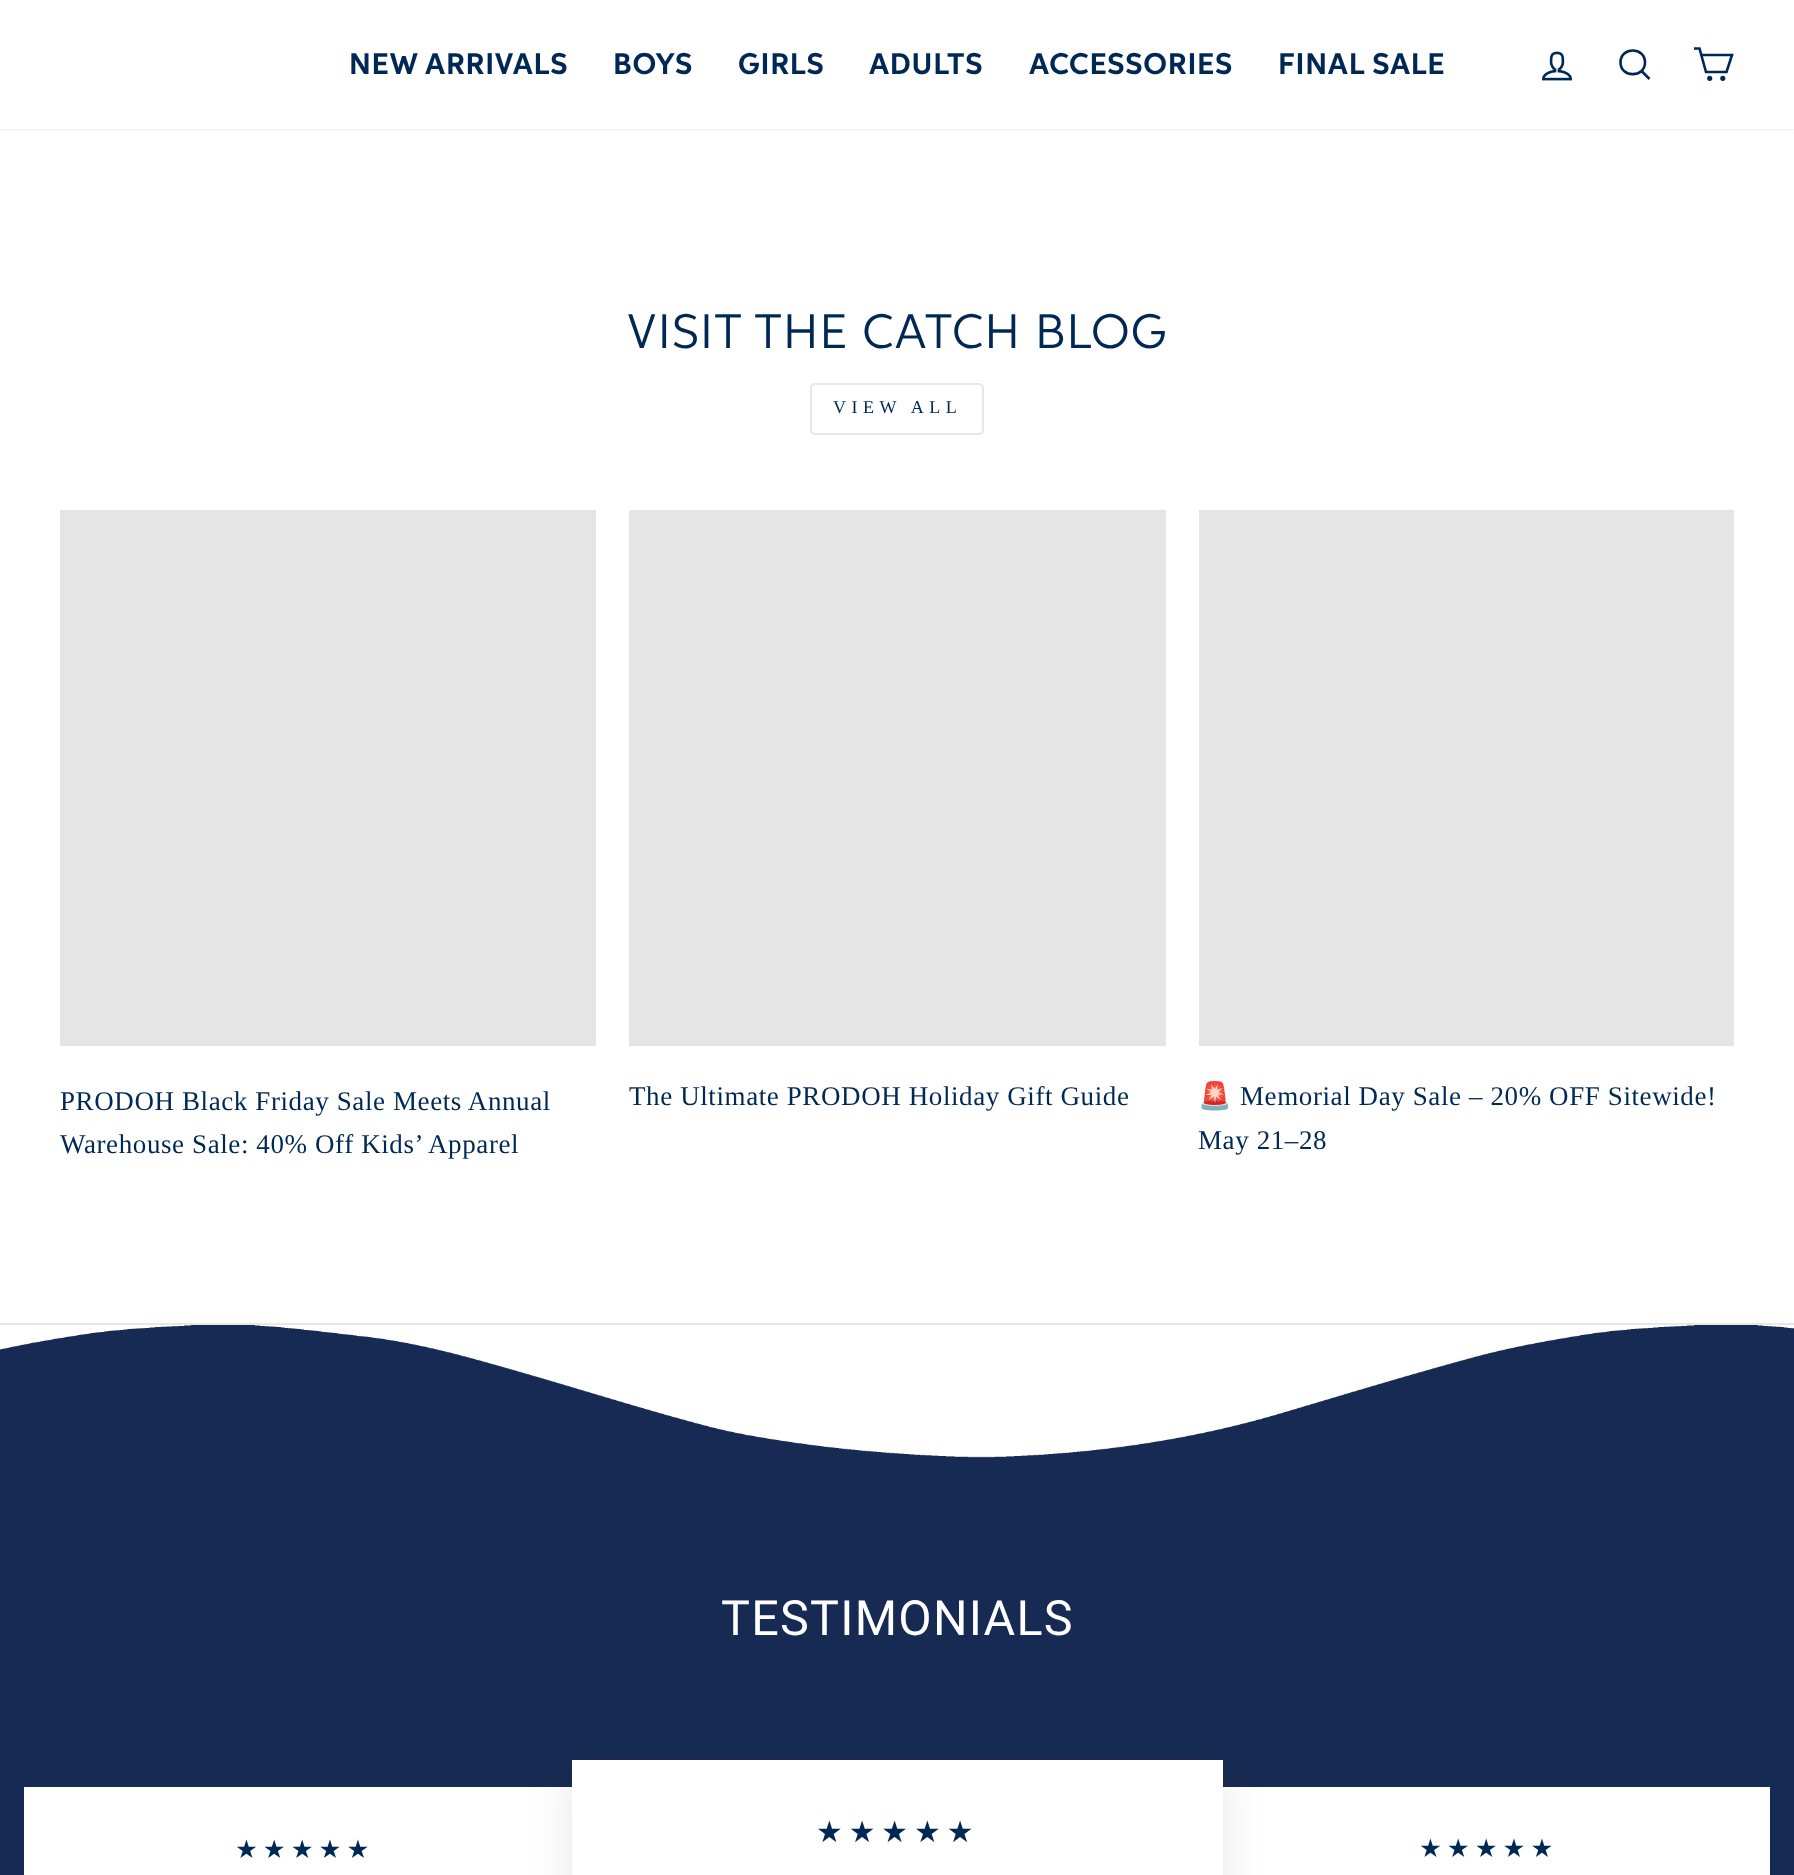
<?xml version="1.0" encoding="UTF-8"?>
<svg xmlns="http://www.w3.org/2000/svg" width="1794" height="1875">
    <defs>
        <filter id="blur1" x="-50%" y="-200%" width="200%" height="500%"><feGaussianBlur stdDeviation="1"/></filter>
        <filter id="blur2" x="-50%" y="-200%" width="200%" height="500%"><feGaussianBlur stdDeviation="20.5"/></filter>
    </defs>
    <rect width="100%" height="100%" fill="#FFFFFF"/>
    <image x="897" y="129" width="737" height="69" href="img_02.png"/>
    <rect x="0" y="0" width="1794" height="129" fill="#000000" fill-opacity="0.2" filter="url(#blur1)"/>
    <rect x="0" y="0" width="1794" height="129" fill="#FFFFFF"/>
    <text x="349" y="74" font-family="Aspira" font-size="30" font-weight="700" letter-spacing="0.75" fill="#002855">NEW ARRIVALS</text>
    <text x="613" y="74" font-family="Aspira" font-size="30" font-weight="700" letter-spacing="0.75" fill="#002855">BOYS</text>
    <text x="738" y="74" font-family="Aspira" font-size="30" font-weight="700" letter-spacing="0.75" fill="#002855">GIRLS</text>
    <text x="869" y="74" font-family="Aspira" font-size="30" font-weight="700" letter-spacing="0.75" fill="#002855">ADULTS</text>
    <text x="1029" y="74" font-family="Aspira" font-size="30" font-weight="700" letter-spacing="0.75" fill="#002855">ACCESSORIES</text>
    <text x="1278" y="74" font-family="Aspira" font-size="30" font-weight="700" letter-spacing="0.75" fill="#002855">FINAL SALE</text>
    <image x="1541" y="51" width="32" height="30" href="img_01.png"/>
    <path d="M 1645 62.5 C 1645 78 1620.5 78 1620.5 62.5 C 1620.5 46.5 1645 46.5 1645 62.5 Z M 1649.5 79 L 1641.5 71" fill="none" stroke="#002855" stroke-width="2.6"/>
    <path d="M 1701 55 H 1732 L 1726.5 72 H 1706 L 1699.5 48.5 H 1694" fill="none" stroke="#002855" stroke-width="2.6"/>
    <circle cx="1709.7" cy="78.3" r="1.3" fill="none" stroke="#002855" stroke-width="2.6"/>
    <circle cx="1722.8" cy="78.3" r="1.3" fill="none" stroke="#002855" stroke-width="2.6"/>
    <text x="627" y="348" font-family="Aspira" font-size="48.5" letter-spacing="1.25" fill="#002855">VISIT THE CATCH BLOG</text>
    <rect x="811" y="384" width="172" height="50" rx="4" fill="none" stroke="#E8E8E1" stroke-width="2"/>
    <text x="833" y="413" font-family="Liberation Serif" font-size="18" letter-spacing="5.5" fill="#002855">VIEW ALL</text>
    <rect x="60" y="510" width="536" height="536" fill="#E5E5E5"/>
    <text font-family="Liberation Serif" font-size="27" letter-spacing="0.6" fill="#002855">
        <tspan x="60" y="1110">PRODOH Black Friday Sale Meets Annual</tspan>
        <tspan x="60" y="1153">Warehouse Sale: 40% Off Kids’ Apparel</tspan>
    </text>
    <rect x="629" y="510" width="537" height="536" fill="#E5E5E5"/>
    <text x="629" y="1105" font-family="Liberation Serif" font-size="27" letter-spacing="0.6" fill="#002855">The Ultimate PRODOH Holiday Gift Guide</text>
    <rect x="1199" y="510" width="535" height="536" fill="#E5E5E5"/>
    <text x="1198" y="1105" font-family="Noto Color Emoji" font-size="27" letter-spacing="0.6" fill="#002855">🚨</text>
    <text x="1240" y="1105" font-family="Liberation Serif" font-size="27" letter-spacing="0.6" fill="#002855">Memorial Day Sale – 20% OFF Sitewide!</text>
    <text x="1198" y="1149" font-family="Liberation Serif" font-size="27" letter-spacing="0.6" fill="#002855">May 21–28</text>
    <image x="0" y="1325" width="1794" height="550" href="img_03.png"/>
    <rect x="0" y="1323" width="1794" height="2" fill="#E8E8E1"/>
    <text x="721" y="1635" font-family="Roboto" font-size="48.5" letter-spacing="1.25" fill="#FFFFFF">TESTIMONIALS</text>
    <rect x="24" y="1787" width="548" height="88" fill="#FFFFFF"/>
    <rect x="1223" y="1787" width="547" height="88" fill="#FFFFFF"/>
    <rect x="572" y="1776" width="651" height="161" fill="#000000" fill-opacity="0.1" filter="url(#blur2)"/>
    <rect x="572" y="1760" width="651" height="115" fill="#FFFFFF"/>
    <text x="816" y="1842" font-family="DejaVu Sans" font-size="29.75" letter-spacing="6" fill="#002855">★★★★★</text>
    <text x="235" y="1858" font-family="DejaVu Sans" font-size="25.5" letter-spacing="5" fill="#002855">★★★★★</text>
    <text x="1419" y="1857" font-family="DejaVu Sans" font-size="25.5" letter-spacing="5" fill="#002855">★★★★★</text>
</svg>
